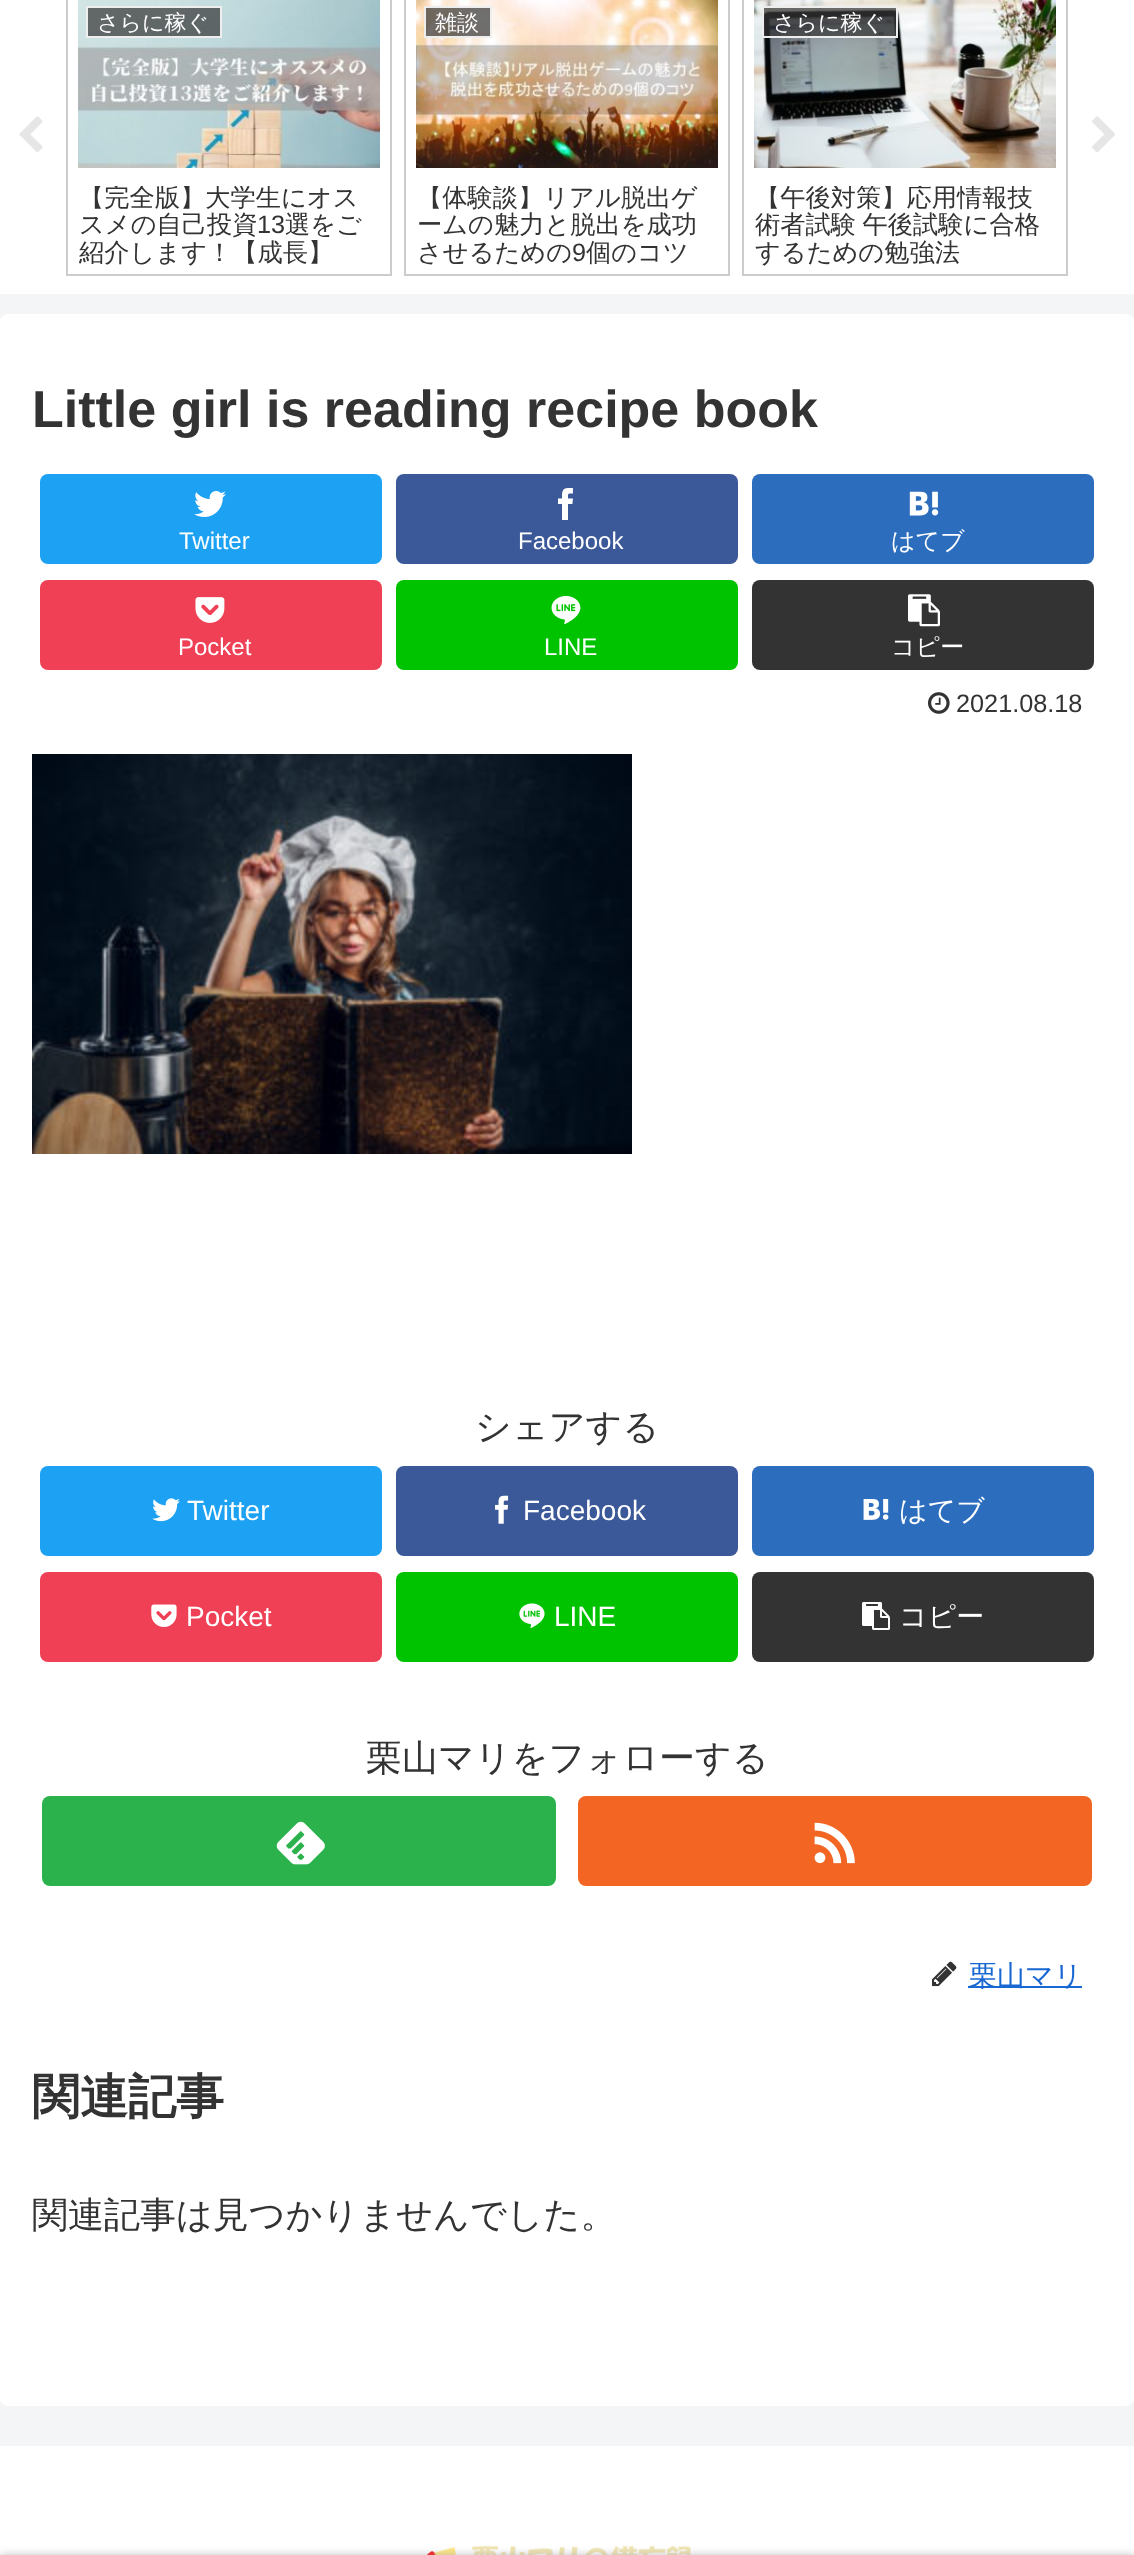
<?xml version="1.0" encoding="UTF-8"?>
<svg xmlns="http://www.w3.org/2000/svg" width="1134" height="2555">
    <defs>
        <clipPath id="clip1"><rect x="78" y="186" width="302" height="80"/></clipPath>
        <clipPath id="clip2"><rect x="416" y="186" width="302" height="80"/></clipPath>
        <clipPath id="clip3"><rect x="754" y="186" width="302" height="80"/></clipPath>
        <filter id="blur1" x="-50%" y="-200%" width="200%" height="500%"><feGaussianBlur stdDeviation="5"/></filter>
    </defs>
    <rect width="100%" height="100%" fill="#F4F5F7"/>
    <rect x="0" y="0" width="1134" height="294" fill="#FFFFFF"/>
    <image x="19" y="116" width="24" height="37" href="img_01.png"/>
    <rect x="67" y="-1" width="324" height="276" fill="none" stroke="#CCCCCC" stroke-width="2"/>
    <image x="78" y="0" width="302" height="168" href="img_02.png"/>
    <rect x="87" y="7" width="134" height="30" fill="#333333" fill-opacity="0.7" stroke="#EEEEEE" stroke-width="2"/>
    <text x="97" y="30" font-family="WenQuanYi Zen Hei" font-size="22" font-weight="500" fill="#FFFFFF">さらに稼ぐ</text>
    <g clip-path="url(#clip1)">
        <text x="79" y="206" font-family="WenQuanYi Zen Hei" font-size="25.25" font-weight="500" fill="#333333">【完全版】大学生にオス</text>
    </g>
    <text x="79" y="233" font-family="WenQuanYi Zen Hei" font-size="25.25" font-weight="500" fill="#333333">スメの自己投資</text>
    <text x="257" y="233" font-family="Liberation Sans" font-size="25.25" fill="#333333">13</text>
    <text x="285" y="233" font-family="WenQuanYi Zen Hei" font-size="25.25" font-weight="500" fill="#333333">選をご</text>
    <text x="79" y="261" font-family="WenQuanYi Zen Hei" font-size="25.25" font-weight="500" fill="#333333">紹介します！【成長】</text>
    <rect x="405" y="-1" width="324" height="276" fill="none" stroke="#CCCCCC" stroke-width="2"/>
    <image x="416" y="0" width="302" height="168" href="img_03.png"/>
    <rect x="425" y="7" width="66" height="30" fill="#333333" fill-opacity="0.7" stroke="#EEEEEE" stroke-width="2"/>
    <text x="435" y="30" font-family="WenQuanYi Zen Hei" font-size="22" font-weight="500" fill="#FFFFFF">雑談</text>
    <g clip-path="url(#clip2)">
        <text x="417" y="206" font-family="WenQuanYi Zen Hei" font-size="25.25" font-weight="500" fill="#333333">【体験談】リアル脱出ゲ</text>
    </g>
    <text font-family="WenQuanYi Zen Hei" font-size="25.25" font-weight="500" fill="#333333">
        <tspan x="417" y="233">ームの魅力と脱出を成功</tspan>
        <tspan x="417" y="261">させるための</tspan>
    </text>
    <text x="572" y="261" font-family="Liberation Sans" font-size="25.25" fill="#333333">9</text>
    <text x="586" y="261" font-family="WenQuanYi Zen Hei" font-size="25.25" font-weight="500" fill="#333333">個のコツ</text>
    <rect x="743" y="-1" width="324" height="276" fill="none" stroke="#CCCCCC" stroke-width="2"/>
    <image x="754" y="0" width="302" height="168" href="img_04.png"/>
    <rect x="763" y="7" width="134" height="30" fill="#333333" fill-opacity="0.7" stroke="#EEEEEE" stroke-width="2"/>
    <text x="773" y="30" font-family="WenQuanYi Zen Hei" font-size="22" font-weight="500" fill="#FFFFFF">さらに稼ぐ</text>
    <g clip-path="url(#clip3)">
        <text x="755" y="206" font-family="WenQuanYi Zen Hei" font-size="25.25" font-weight="500" fill="#333333">【午後対策】応用情報技</text>
    </g>
    <text font-family="WenQuanYi Zen Hei" font-size="25.25" font-weight="500" fill="#333333">
        <tspan x="755" y="233" word-spacing="-1">術者試験 午後試験に合格</tspan>
        <tspan x="755" y="261">するための勉強法</tspan>
    </text>
    <image x="1092" y="116" width="23" height="37" href="img_05.png"/>
    <rect x="0" y="314" width="1134" height="2092" rx="8" fill="#FFFFFF"/>
    <text x="32" y="427" font-family="Liberation Sans" font-size="52" font-weight="700" fill="#333333">Little girl is reading recipe book</text>
    <rect x="40" y="474" width="342" height="90" rx="8" fill="#1DA1F2"/>
    <image x="194" y="491" width="32" height="26" href="img_06.png"/>
    <text x="179" y="549" font-family="Liberation Sans" font-size="24" fill="#FFFFFF">Twitter</text>
    <rect x="396" y="474" width="342" height="90" rx="8" fill="#3B5998"/>
    <image x="558" y="488" width="15" height="32" href="img_07.png"/>
    <text x="518" y="549" font-family="Liberation Sans" font-size="24" fill="#FFFFFF">Facebook</text>
    <rect x="752" y="474" width="342" height="90" rx="8" fill="#2C6EBD"/>
    <image x="909" y="491" width="30" height="25" href="img_08.png"/>
    <text x="891" y="549" font-family="WenQuanYi Zen Hei" font-size="24" font-weight="500" fill="#FFFFFF">はてブ</text>
    <rect x="40" y="580" width="342" height="90" rx="8" fill="#EF4056"/>
    <image x="195" y="597" width="30" height="26" href="img_09.png"/>
    <text x="178" y="655" font-family="Liberation Sans" font-size="24" fill="#FFFFFF">Pocket</text>
    <rect x="396" y="580" width="342" height="90" rx="8" fill="#00C300"/>
    <image x="551" y="595" width="30" height="30" href="img_10.png"/>
    <text x="544" y="655" font-family="Liberation Sans" font-size="24" fill="#FFFFFF">LINE</text>
    <rect x="752" y="580" width="342" height="90" rx="8" fill="#333333"/>
    <image x="908" y="594" width="32" height="33" href="img_11.png"/>
    <text x="891" y="655" font-family="WenQuanYi Zen Hei" font-size="24" font-weight="500" fill="#FFFFFF">コピー</text>
    <image x="928" y="692" width="22" height="22" href="img_12.png"/>
    <text x="956" y="712" font-family="Liberation Sans" font-size="25.25" fill="#333333">2021.08.18</text>
    <image x="32" y="754" width="600" height="400" href="img_13.png"/>
    <text x="475" y="1439" font-family="WenQuanYi Zen Hei" font-size="36" font-weight="500" fill="#333333">シェアする</text>
    <rect x="40" y="1466" width="342" height="90" rx="8" fill="#1DA1F2"/>
    <image x="152" y="1498" width="28" height="24" href="img_14.png"/>
    <text x="187" y="1520" font-family="Liberation Sans" font-size="28" fill="#FFFFFF">Twitter</text>
    <rect x="396" y="1466" width="342" height="90" rx="8" fill="#3B5998"/>
    <image x="495" y="1495" width="14" height="29" href="img_15.png"/>
    <text x="523" y="1520" font-family="Liberation Sans" font-size="28" fill="#FFFFFF">Facebook</text>
    <rect x="752" y="1466" width="342" height="90" rx="8" fill="#2C6EBD"/>
    <image x="863" y="1499" width="26" height="21" href="img_16.png"/>
    <text x="899" y="1520" font-family="WenQuanYi Zen Hei" font-size="28" font-weight="500" fill="#FFFFFF">はてブ</text>
    <rect x="40" y="1572" width="342" height="90" rx="8" fill="#EF4056"/>
    <image x="151" y="1604" width="26" height="23" href="img_17.png"/>
    <text x="186" y="1626" font-family="Liberation Sans" font-size="28" fill="#FFFFFF">Pocket</text>
    <rect x="396" y="1572" width="342" height="90" rx="8" fill="#00C300"/>
    <image x="519" y="1603" width="26" height="26" href="img_18.png"/>
    <text x="554" y="1626" font-family="Liberation Sans" font-size="28" fill="#FFFFFF">LINE</text>
    <rect x="752" y="1572" width="342" height="90" rx="8" fill="#333333"/>
    <image x="862" y="1602" width="28" height="28" href="img_19.png"/>
    <text x="899" y="1626" font-family="WenQuanYi Zen Hei" font-size="28" font-weight="500" fill="#FFFFFF">コピー</text>
    <text x="366" y="1770" font-family="WenQuanYi Zen Hei" font-size="36" font-weight="500" fill="#333333">栗山マリをフォローする</text>
    <rect x="42" y="1796" width="514" height="90" rx="8" fill="#2BB24C"/>
    <image x="276" y="1821" width="49" height="44" href="img_20.png"/>
    <rect x="578" y="1796" width="514" height="90" rx="8" fill="#F26522"/>
    <image x="814" y="1822" width="41" height="42" href="img_21.png"/>
    <image x="932" y="1961" width="25" height="26" href="img_22.png"/>
    <rect x="968" y="1986" width="114" height="2" fill="#1967D2"/>
    <text x="969" y="1985" font-family="WenQuanYi Zen Hei" font-size="28" font-weight="500" fill="#1967D2">栗山マリ</text>
    <text x="32" y="2113" font-family="WenQuanYi Zen Hei" font-size="48" font-weight="700" fill="#333333">関連記事</text>
    <text x="32" y="2227" font-family="WenQuanYi Zen Hei" font-size="36" font-weight="500" fill="#333333">関連記事は見つかりませんでした。</text>
    <rect x="0" y="2446" width="1134" height="109" fill="#FFFFFF"/>
    <image x="426" y="2545" width="265" height="10" href="img_23.png"/>
    <rect x="0" y="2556" width="1134" height="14" fill="#A9A9A9" fill-opacity="0.9" filter="url(#blur1)"/>
</svg>
